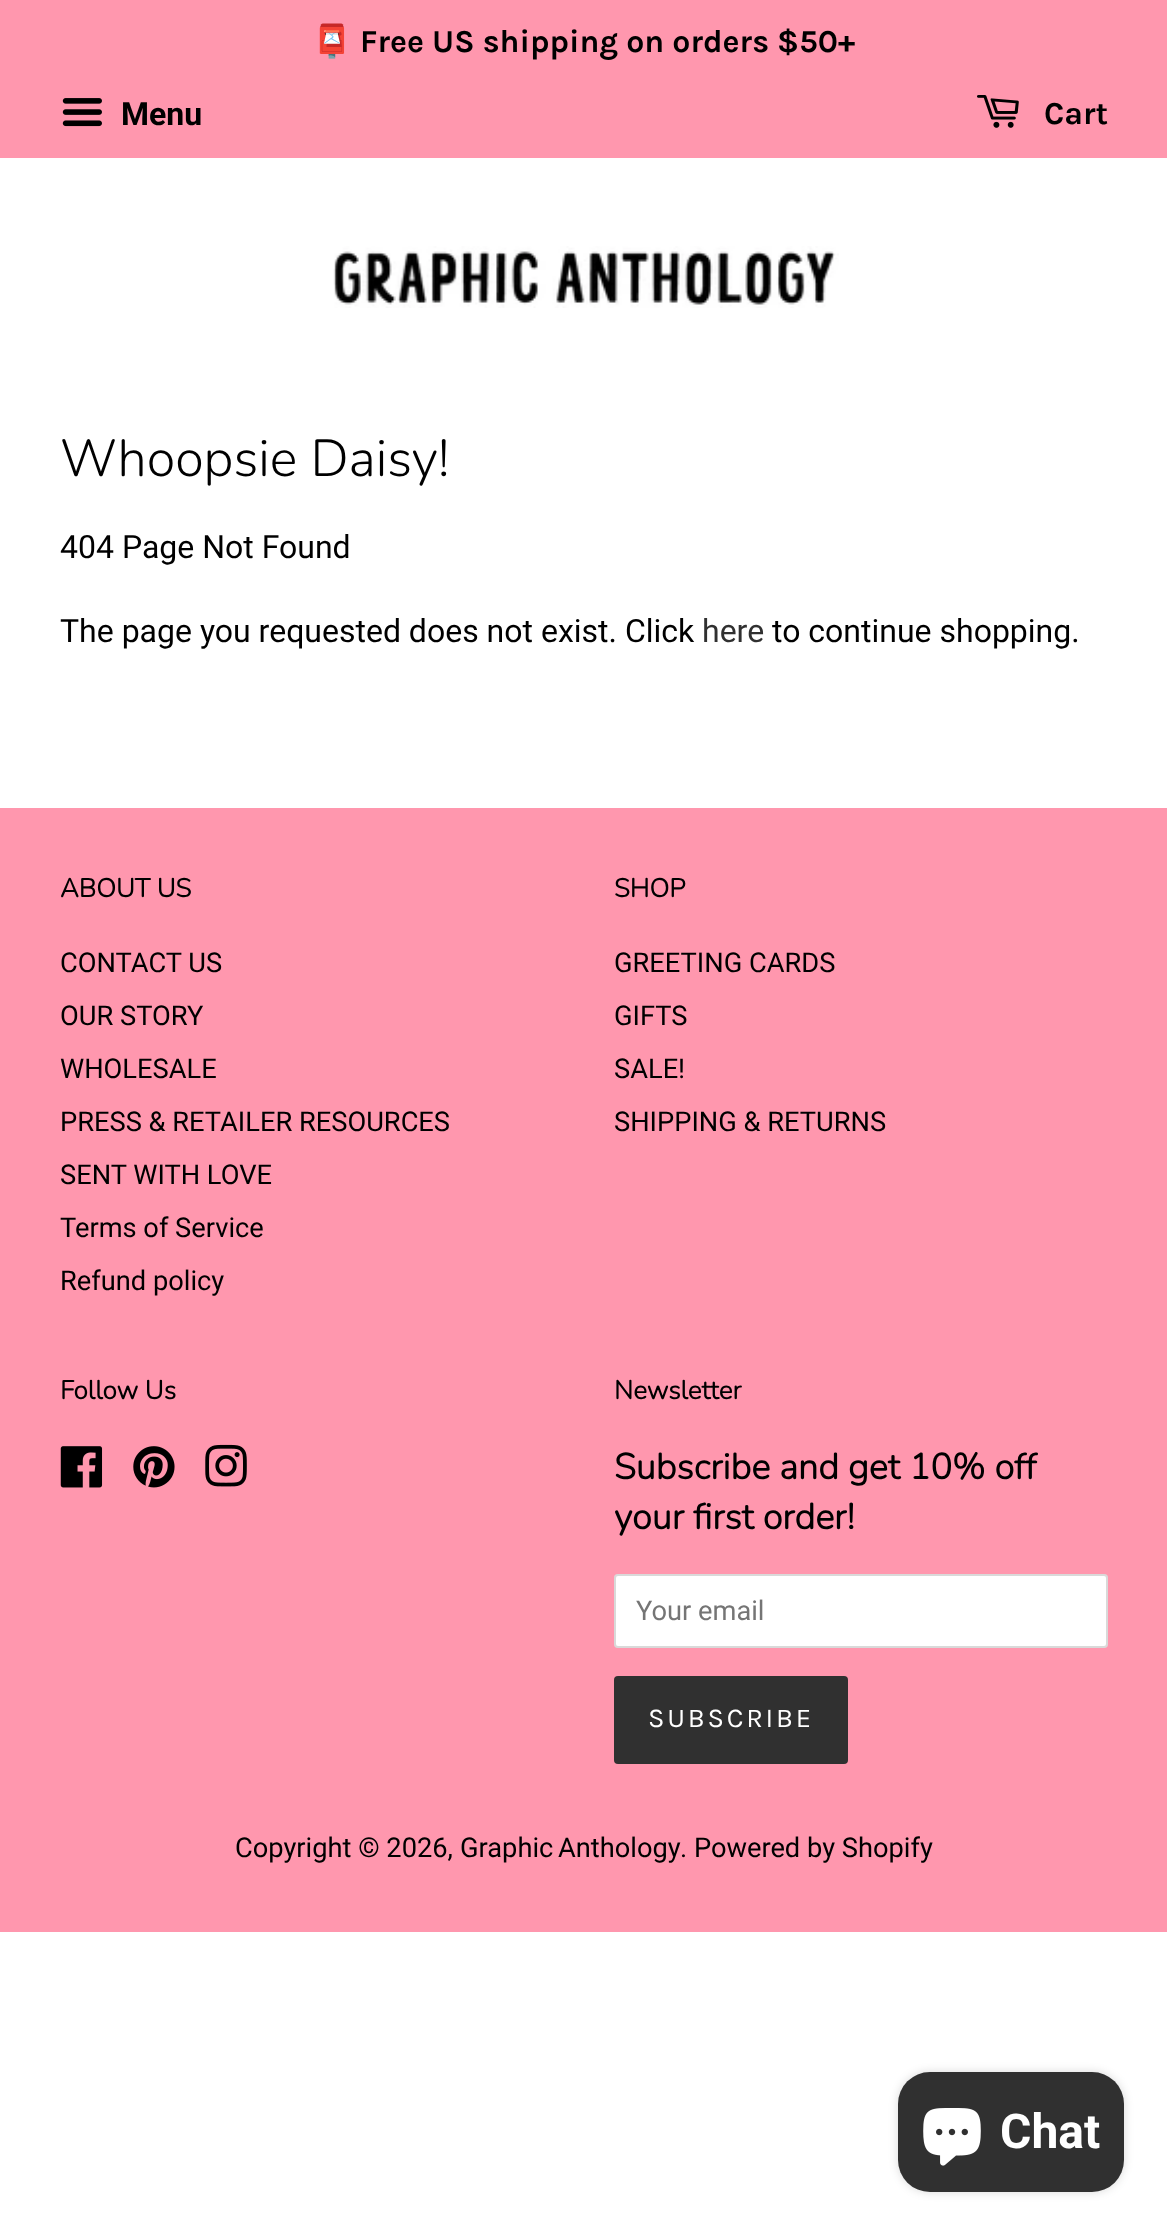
<?xml version="1.0" encoding="UTF-8"?>
<svg xmlns="http://www.w3.org/2000/svg" width="1167" height="2233">
    <defs>
        <filter id="blur1" x="-50%" y="-200%" width="200%" height="500%"><feGaussianBlur stdDeviation="5"/></filter>
    </defs>
    <rect width="100%" height="100%" fill="#FFFFFF"/>
    <rect x="0" y="0" width="1167" height="158" fill="#FF97AE"/>
    <text x="312" y="52" font-family="Noto Color Emoji" font-size="32" font-weight="700" fill="#000000">📮</text>
    <text x="360" y="52" font-family="Karla" font-size="32" font-weight="700" fill="#000000">Free US shipping on orders $50+</text>
    <image x="62" y="98" width="40" height="29" href="img_01.png"/>
    <text x="121" y="125" font-family="Roboto" font-size="32" font-weight="700" fill="#000000">Menu</text>
    <image x="977" y="95" width="42" height="33" href="img_02.png"/>
    <text x="1044" y="124" font-family="Karla" font-size="32" font-weight="700" fill="#000000">Cart</text>
    <image x="333" y="246" width="506" height="62" href="img_03.png"/>
    <text x="60" y="476" font-family="Nunito" font-size="52" font-weight="300" fill="#000000">Whoopsie Daisy!</text>
    <text x="60" y="558" font-family="Roboto" font-size="32" fill="#000000">404 Page Not Found</text>
    <text x="60" y="642" font-family="Roboto" font-size="32" fill="#000000">The page you requested does not exist. Click</text>
    <text x="702" y="642" font-family="Roboto" font-size="32" fill="#303030">here</text>
    <text x="772" y="642" font-family="Roboto" font-size="32" fill="#000000">to continue shopping.</text>
    <rect x="0" y="808" width="1167" height="1124" fill="#FF97AE"/>
    <text x="60" y="897" font-family="Nunito" font-size="26" font-weight="700" fill="#000000">ABOUT US</text>
    <text font-family="Roboto" font-size="27.25" fill="#000000">
        <tspan x="60" y="972">CONTACT US</tspan>
        <tspan x="60" y="1025">OUR STORY</tspan>
        <tspan x="60" y="1078">WHOLESALE</tspan>
        <tspan x="60" y="1131">PRESS &amp; RETAILER RESOURCES</tspan>
        <tspan x="60" y="1184">SENT WITH LOVE</tspan>
        <tspan x="60" y="1237">Terms of Service</tspan>
        <tspan x="60" y="1290">Refund policy</tspan>
    </text>
    <text x="614" y="897" font-family="Nunito" font-size="26" font-weight="700" fill="#000000">SHOP</text>
    <text font-family="Roboto" font-size="27.25" fill="#000000">
        <tspan x="614" y="972">GREETING CARDS</tspan>
        <tspan x="614" y="1025">GIFTS</tspan>
        <tspan x="614" y="1078">SALE!</tspan>
        <tspan x="614" y="1131">SHIPPING &amp; RETURNS</tspan>
    </text>
    <text x="60" y="1399" font-family="Nunito" font-size="26" font-weight="700" fill="#000000">Follow Us</text>
    <image x="60" y="1446" width="43" height="42" href="img_04.png"/>
    <image x="133" y="1446" width="42" height="42" href="img_05.png"/>
    <image x="205" y="1444" width="42" height="43" href="img_06.png"/>
    <text x="614" y="1399" font-family="Nunito" font-size="26" font-weight="700" fill="#000000">Newsletter</text>
    <text font-family="Nunito" font-size="36" font-weight="700" fill="#000000">
        <tspan x="614" y="1479">Subscribe and get 10% off</tspan>
        <tspan x="614" y="1529">your first order!</tspan>
    </text>
    <rect x="614" y="1574" width="494" height="74" rx="4" fill="#FFFFFF"/>
    <rect x="615" y="1575" width="492" height="72" rx="3" fill="none" stroke="#000000" stroke-opacity="0.15" stroke-width="2"/>
    <text x="636" y="1620" font-family="Roboto" font-size="27.25" fill="#757575">Your email</text>
    <rect x="614" y="1676" width="234" height="88" rx="4" fill="#303030"/>
    <text x="648" y="1727" font-family="Karla" font-size="27.25" letter-spacing="2.75" fill="#FFFFFF">SUBSCRIBE</text>
    <text x="235" y="1857" font-family="Roboto" font-size="27.25" fill="#000000">Copyright © 2026,</text>
    <text x="460" y="1857" word-spacing="-2" font-family="Roboto" font-size="27.25" fill="#000000">Graphic Anthology</text>
    <text x="680" y="1857" font-family="Roboto" font-size="27.25" fill="#000000">. Powered by Shopify</text>
    <rect x="898" y="2072" width="226" height="120" rx="32" fill="#000000" fill-opacity="0.15" filter="url(#blur1)"/>
    <rect x="898" y="2072" width="226" height="120" rx="32" fill="#303030"/>
    <image x="923" y="2108" width="58" height="58" href="img_07.png"/>
    <text x="1000" y="2148" font-family="Roboto" font-size="48" font-weight="700" fill="#FFFFFF">Chat</text>
</svg>
